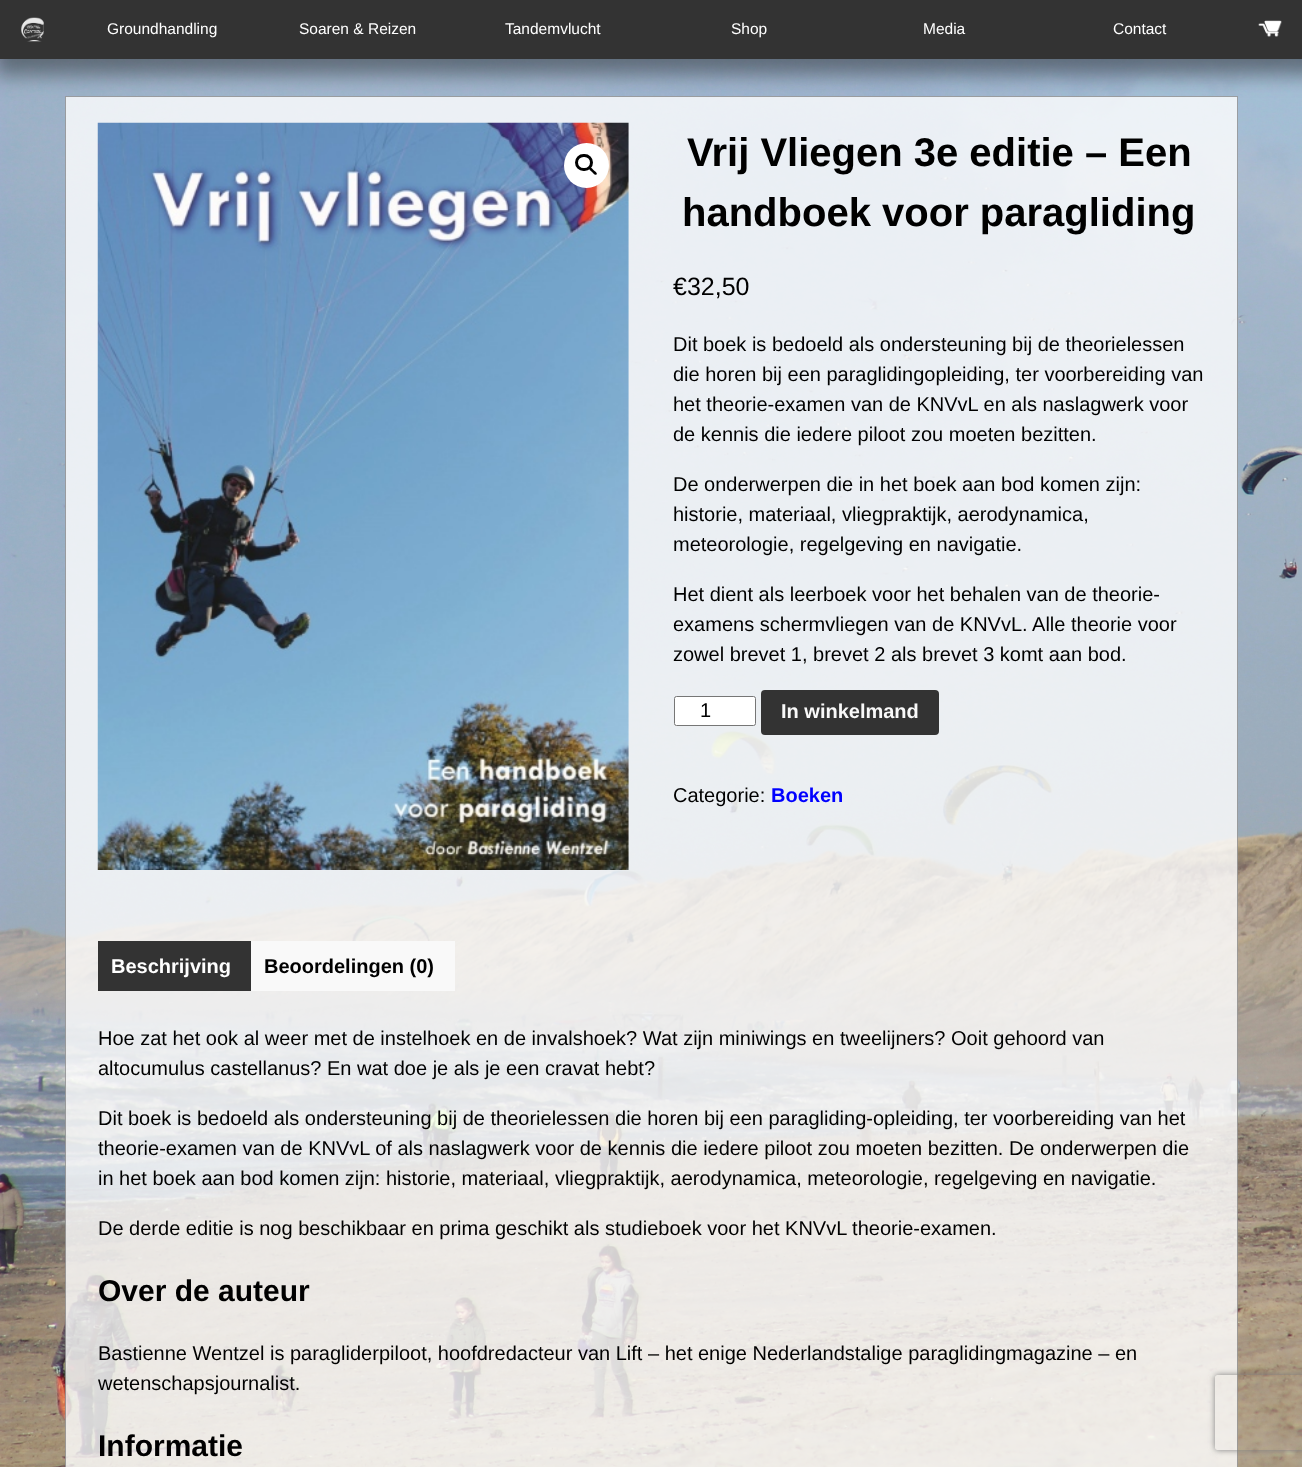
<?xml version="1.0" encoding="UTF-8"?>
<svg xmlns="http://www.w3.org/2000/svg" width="1302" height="1467">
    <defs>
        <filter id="blur1" x="-50%" y="-200%" width="200%" height="500%"><feGaussianBlur stdDeviation="10"/></filter>
        <clipPath id="clip1"><path d="M 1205 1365 H 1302 V 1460 H 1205 Z M 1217.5 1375 H 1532.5 C 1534 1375 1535 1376 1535 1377.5 V 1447.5 C 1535 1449 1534 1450 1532.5 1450 H 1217.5 C 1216 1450 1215 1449 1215 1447.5 V 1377.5 C 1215 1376 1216 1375 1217.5 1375 Z" clip-rule="evenodd"/></clipPath>
        <filter id="blur2" x="-50%" y="-200%" width="200%" height="500%"><feGaussianBlur stdDeviation="3"/></filter>
    </defs>
    <rect width="100%" height="100%" fill="#FFFFFF"/>
    <image x="0" y="59" width="1302" height="1408" href="img_01.png"/>
    <rect x="-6" y="4" width="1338" height="71" fill="#000000" fill-opacity="0.4" filter="url(#blur1)"/>
    <rect x="0" y="0" width="1302" height="59" fill="#333333"/>
    <image x="21" y="17" width="23" height="25" href="img_02.png"/>
    <text x="107" y="34" font-family="Liberation Sans" font-size="15.5" fill="#FFFFFF">Groundhandling</text>
    <text x="299" y="34" font-family="Liberation Sans" font-size="15.5" fill="#FFFFFF">Soaren &amp; Reizen</text>
    <text x="505" y="34" font-family="Liberation Sans" font-size="15.5" fill="#FFFFFF">Tandemvlucht</text>
    <text x="731" y="34" font-family="Liberation Sans" font-size="15.5" fill="#FFFFFF">Shop</text>
    <text x="923" y="34" font-family="Liberation Sans" font-size="15.5" fill="#FFFFFF">Media</text>
    <text x="1113" y="34" font-family="Liberation Sans" font-size="15.5" fill="#FFFFFF">Contact</text>
    <image x="1258" y="20" width="24" height="17" href="img_03.png"/>
    <rect x="65" y="96" width="1173" height="1371" fill="#FFFFFF" fill-opacity="0.8"/>
    <rect x="65.5" y="96.5" width="1172" height="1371" fill="none" stroke="#000000" stroke-opacity="0.35"/>
    <image x="97" y="122" width="532" height="748" href="img_04.png"/>
    <circle cx="586.5" cy="165.5" r="22.5" fill="#FFFFFF"/>
    <rect x="576.5" y="155.5" width="15" height="14" rx="7" fill="none" stroke="#000000" stroke-width="3"/>
    <path d="M 589.5 167.5 C 590.5 166 593 169.5 593.5 170 C 594.5 171 598 173 596.5 174.5 C 595 176 592.5 172.5 592 172 C 591 171 588 169 589.5 167.5 Z" fill="#000000"/>
    <text x="687" y="166" font-family="Liberation Sans" font-size="40" font-weight="700" fill="#000000">Vrij Vliegen 3e editie – Een</text>
    <text x="682" y="226" font-family="Liberation Sans" font-size="40" font-weight="700" fill="#000000">handboek voor paragliding</text>
    <text x="673" y="295" font-family="Liberation Sans" font-size="25" fill="#000000">€32,50</text>
    <text font-family="Liberation Sans" font-size="20" fill="#000000">
        <tspan x="673" y="351">Dit boek is bedoeld als ondersteuning bij de theorielessen</tspan>
        <tspan x="673" y="381">die horen bij een paraglidingopleiding, ter voorbereiding van</tspan>
        <tspan x="673" y="411">het theorie-examen van de KNVvL en als naslagwerk voor</tspan>
        <tspan x="673" y="441">de kennis die iedere piloot zou moeten bezitten.</tspan>
    </text>
    <text font-family="Liberation Sans" font-size="20" fill="#000000">
        <tspan x="673" y="491">De onderwerpen die in het boek aan bod komen zijn:</tspan>
        <tspan x="673" y="521">historie, materiaal, vliegpraktijk, aerodynamica,</tspan>
        <tspan x="673" y="551">meteorologie, regelgeving en navigatie.</tspan>
    </text>
    <text font-family="Liberation Sans" font-size="20" fill="#000000">
        <tspan x="673" y="601">Het dient als leerboek voor het behalen van de theorie-</tspan>
        <tspan x="673" y="631">examens schermvliegen van de KNVvL. Alle theorie voor</tspan>
        <tspan x="673" y="661">zowel brevet 1, brevet 2 als brevet 3 komt aan bod.</tspan>
    </text>
    <rect x="674.5" y="696.5" width="81" height="29" rx="2" fill="#FFFFFF" stroke="#767676"/>
    <text x="700" y="717" font-family="Liberation Sans" font-size="20" fill="#000000">1</text>
    <rect x="761" y="690" width="178" height="45" rx="4" fill="#333333"/>
    <text x="781" y="718" font-family="Liberation Sans" font-size="20" font-weight="700" fill="#F9F9F9">In winkelmand</text>
    <text x="673" y="802" font-family="Liberation Sans" font-size="20" fill="#000000">Categorie:</text>
    <text x="771" y="802" font-family="Liberation Sans" font-size="20" font-weight="700" fill="#0000FF">Boeken</text>
    <rect x="98" y="941" width="153" height="50" fill="#333333"/>
    <text x="111" y="973" font-family="Liberation Sans" font-size="20" font-weight="700" fill="#FFFFFF">Beschrijving</text>
    <rect x="251" y="941" width="204" height="50" fill="#F9F9F9"/>
    <text x="264" y="973" font-family="Liberation Sans" font-size="20" font-weight="700" fill="#000000">Beoordelingen (0)</text>
    <text font-family="Liberation Sans" font-size="20" fill="#000000">
        <tspan x="98" y="1045">Hoe zat het ook al weer met de instelhoek en de invalshoek? Wat zijn miniwings en tweelijners? Ooit gehoord van</tspan>
        <tspan x="98" y="1075">altocumulus castellanus? En wat doe je als je een cravat hebt?</tspan>
    </text>
    <text font-family="Liberation Sans" font-size="20" fill="#000000">
        <tspan x="98" y="1125">Dit boek is bedoeld als ondersteuning bij de theorielessen die horen bij een paragliding-opleiding, ter voorbereiding van het</tspan>
        <tspan x="98" y="1155">theorie-examen van de KNVvL of als naslagwerk voor de kennis die iedere piloot zou moeten bezitten. De onderwerpen die</tspan>
        <tspan x="98" y="1185">in het boek aan bod komen zijn: historie, materiaal, vliegpraktijk, aerodynamica, meteorologie, regelgeving en navigatie.</tspan>
    </text>
    <text x="98" y="1235" font-family="Liberation Sans" font-size="20" fill="#000000">De derde editie is nog beschikbaar en prima geschikt als studieboek voor het KNVvL theorie-examen.</text>
    <text x="98" y="1301" font-family="Liberation Sans" font-size="30" font-weight="700" fill="#000000">Over de auteur</text>
    <text font-family="Liberation Sans" font-size="20" fill="#000000">
        <tspan x="98" y="1360">Bastienne Wentzel is paragliderpiloot, hoofdredacteur van Lift – het enige Nederlandstalige paraglidingmagazine – en</tspan>
        <tspan x="98" y="1390">wetenschapsjournalist.</tspan>
    </text>
    <text x="98" y="1456" font-family="Liberation Sans" font-size="30" font-weight="700" fill="#000000">Informatie</text>
    <g clip-path="url(#clip1)">
        <rect x="1215" y="1375" width="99" height="75" rx="2.5" fill="#808080" filter="url(#blur2)"/>
    </g>
</svg>
